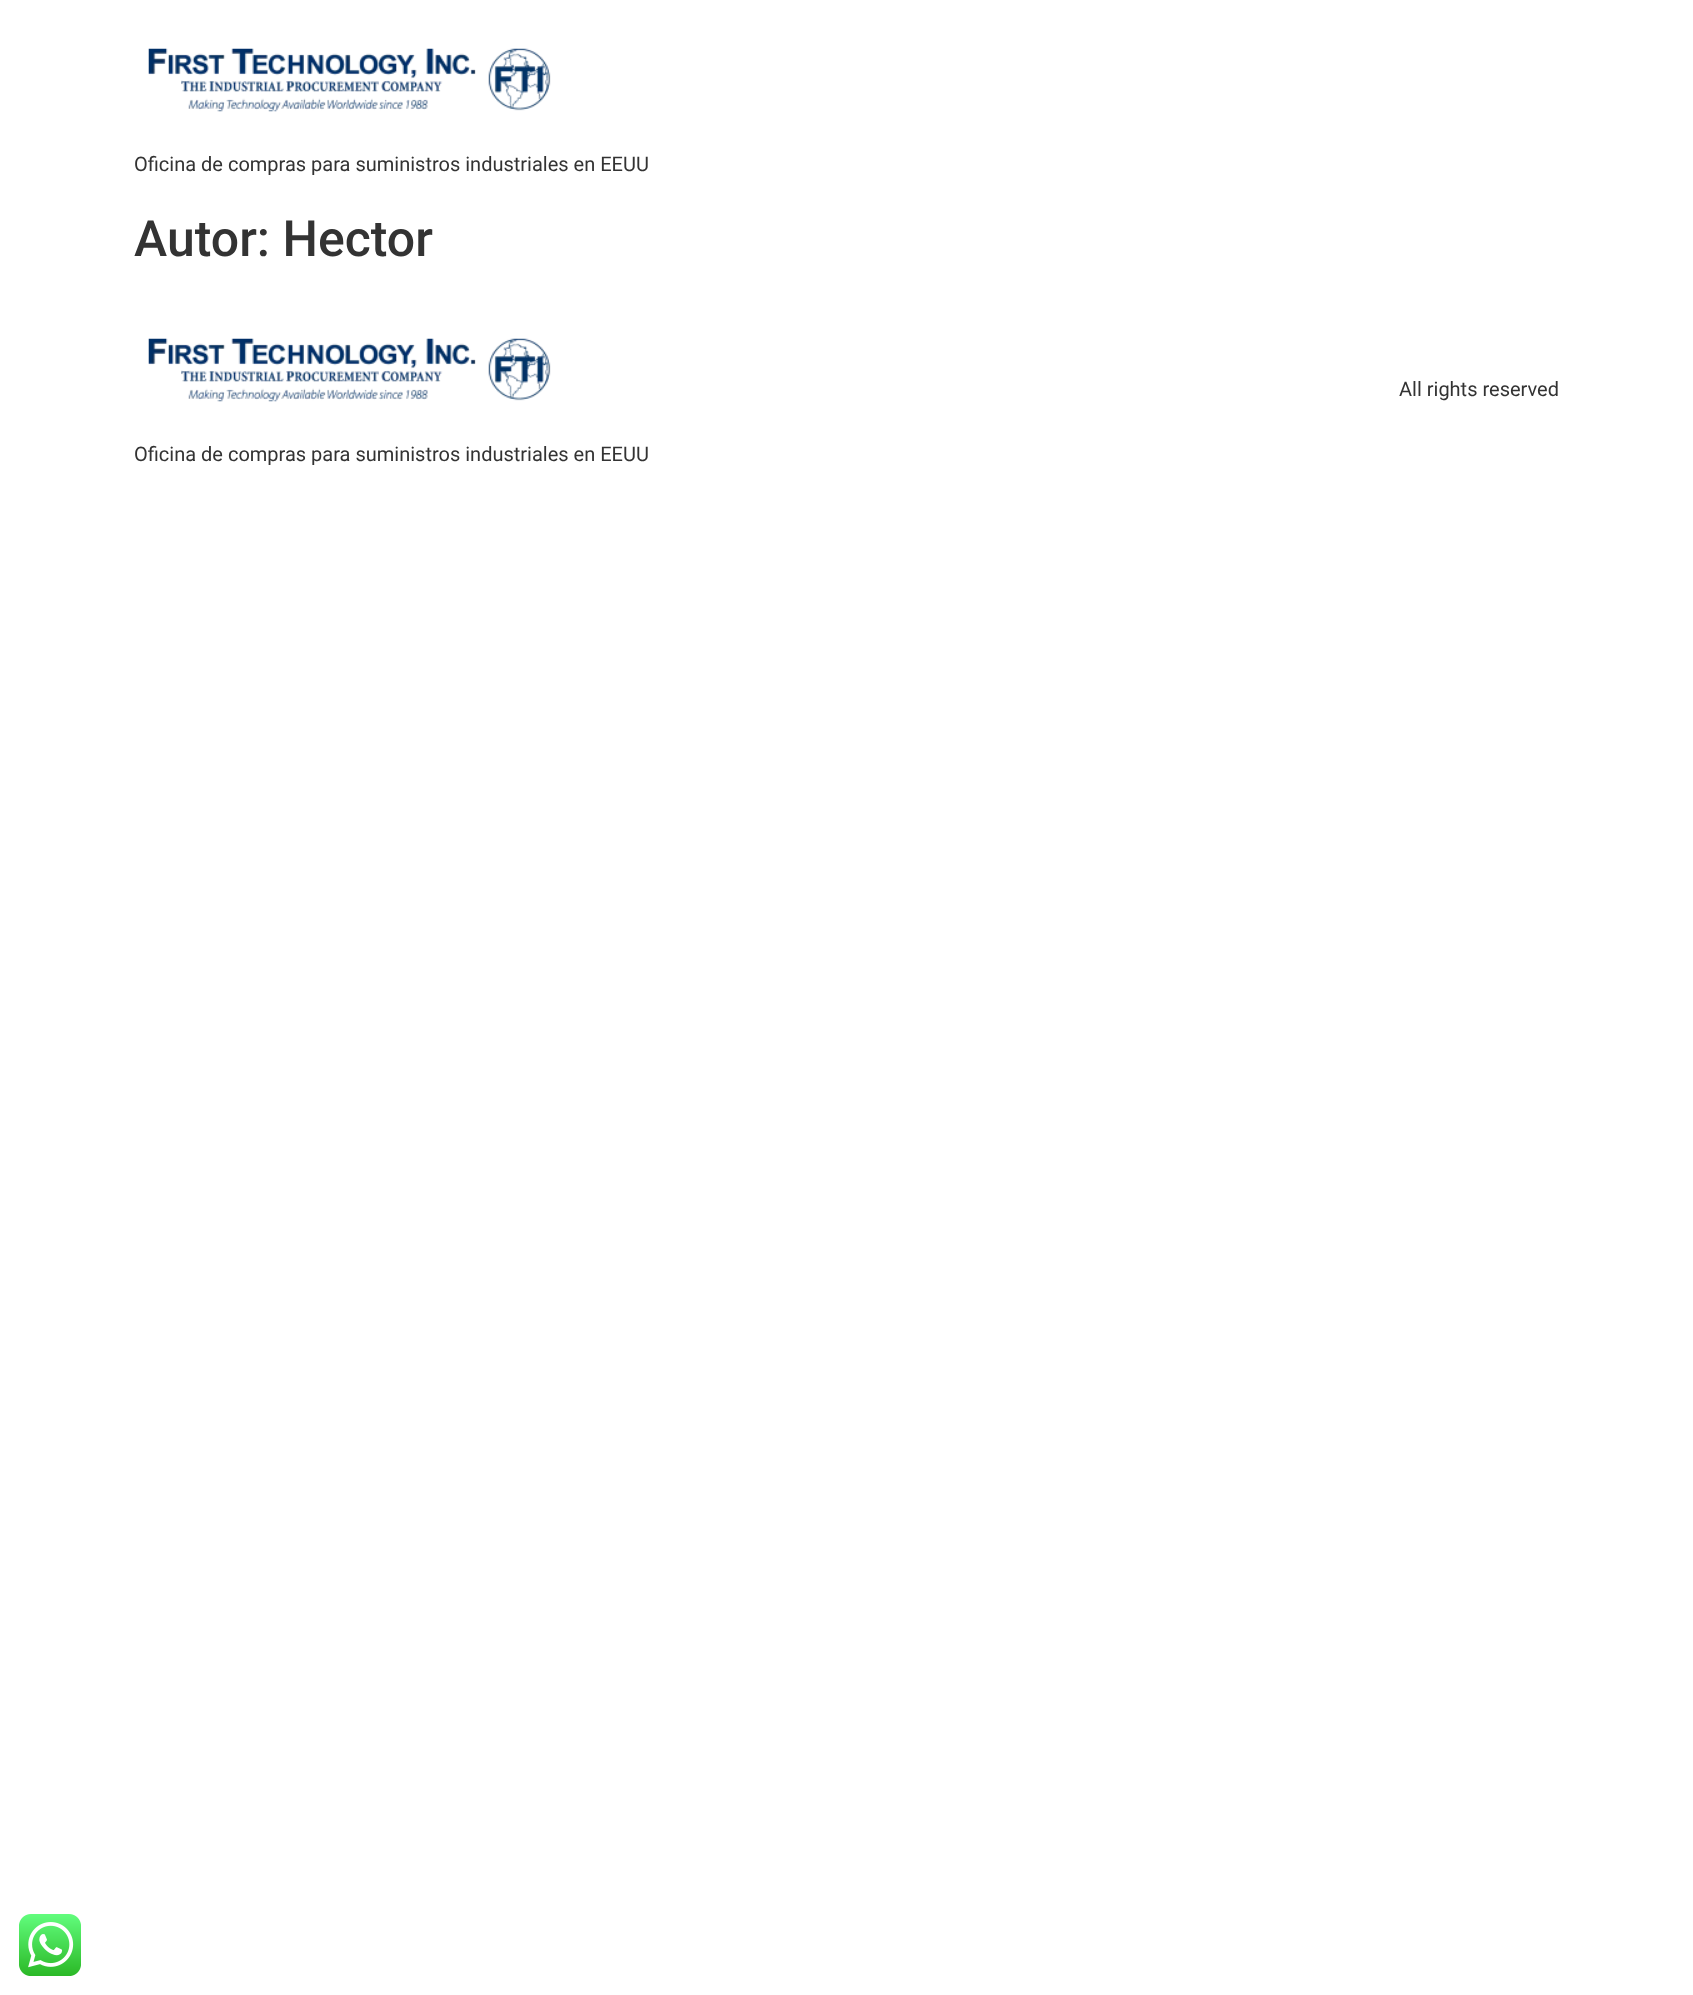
<?xml version="1.0" encoding="UTF-8"?>
<svg xmlns="http://www.w3.org/2000/svg" width="1693" height="1995">
    <rect width="100%" height="100%" fill="#FFFFFF"/>
    <image x="148" y="48" width="403" height="64" href="img_01.png"/>
    <text x="134" y="171" font-family="Roboto" font-size="20" fill="#333333">Oficina de compras para suministros industriales en EEUU</text>
    <text x="134" y="256" font-family="Roboto" font-size="50" font-weight="500" fill="#333333">Autor: Hector</text>
    <text x="1399" y="396" font-family="Roboto" font-size="20" fill="#333333">All rights reserved</text>
    <image x="148" y="338" width="403" height="64" href="img_01.png"/>
    <text x="134" y="461" font-family="Roboto" font-size="20" fill="#333333">Oficina de compras para suministros industriales en EEUU</text>
    <image x="19" y="1914" width="62" height="62" href="img_02.png"/>
</svg>
